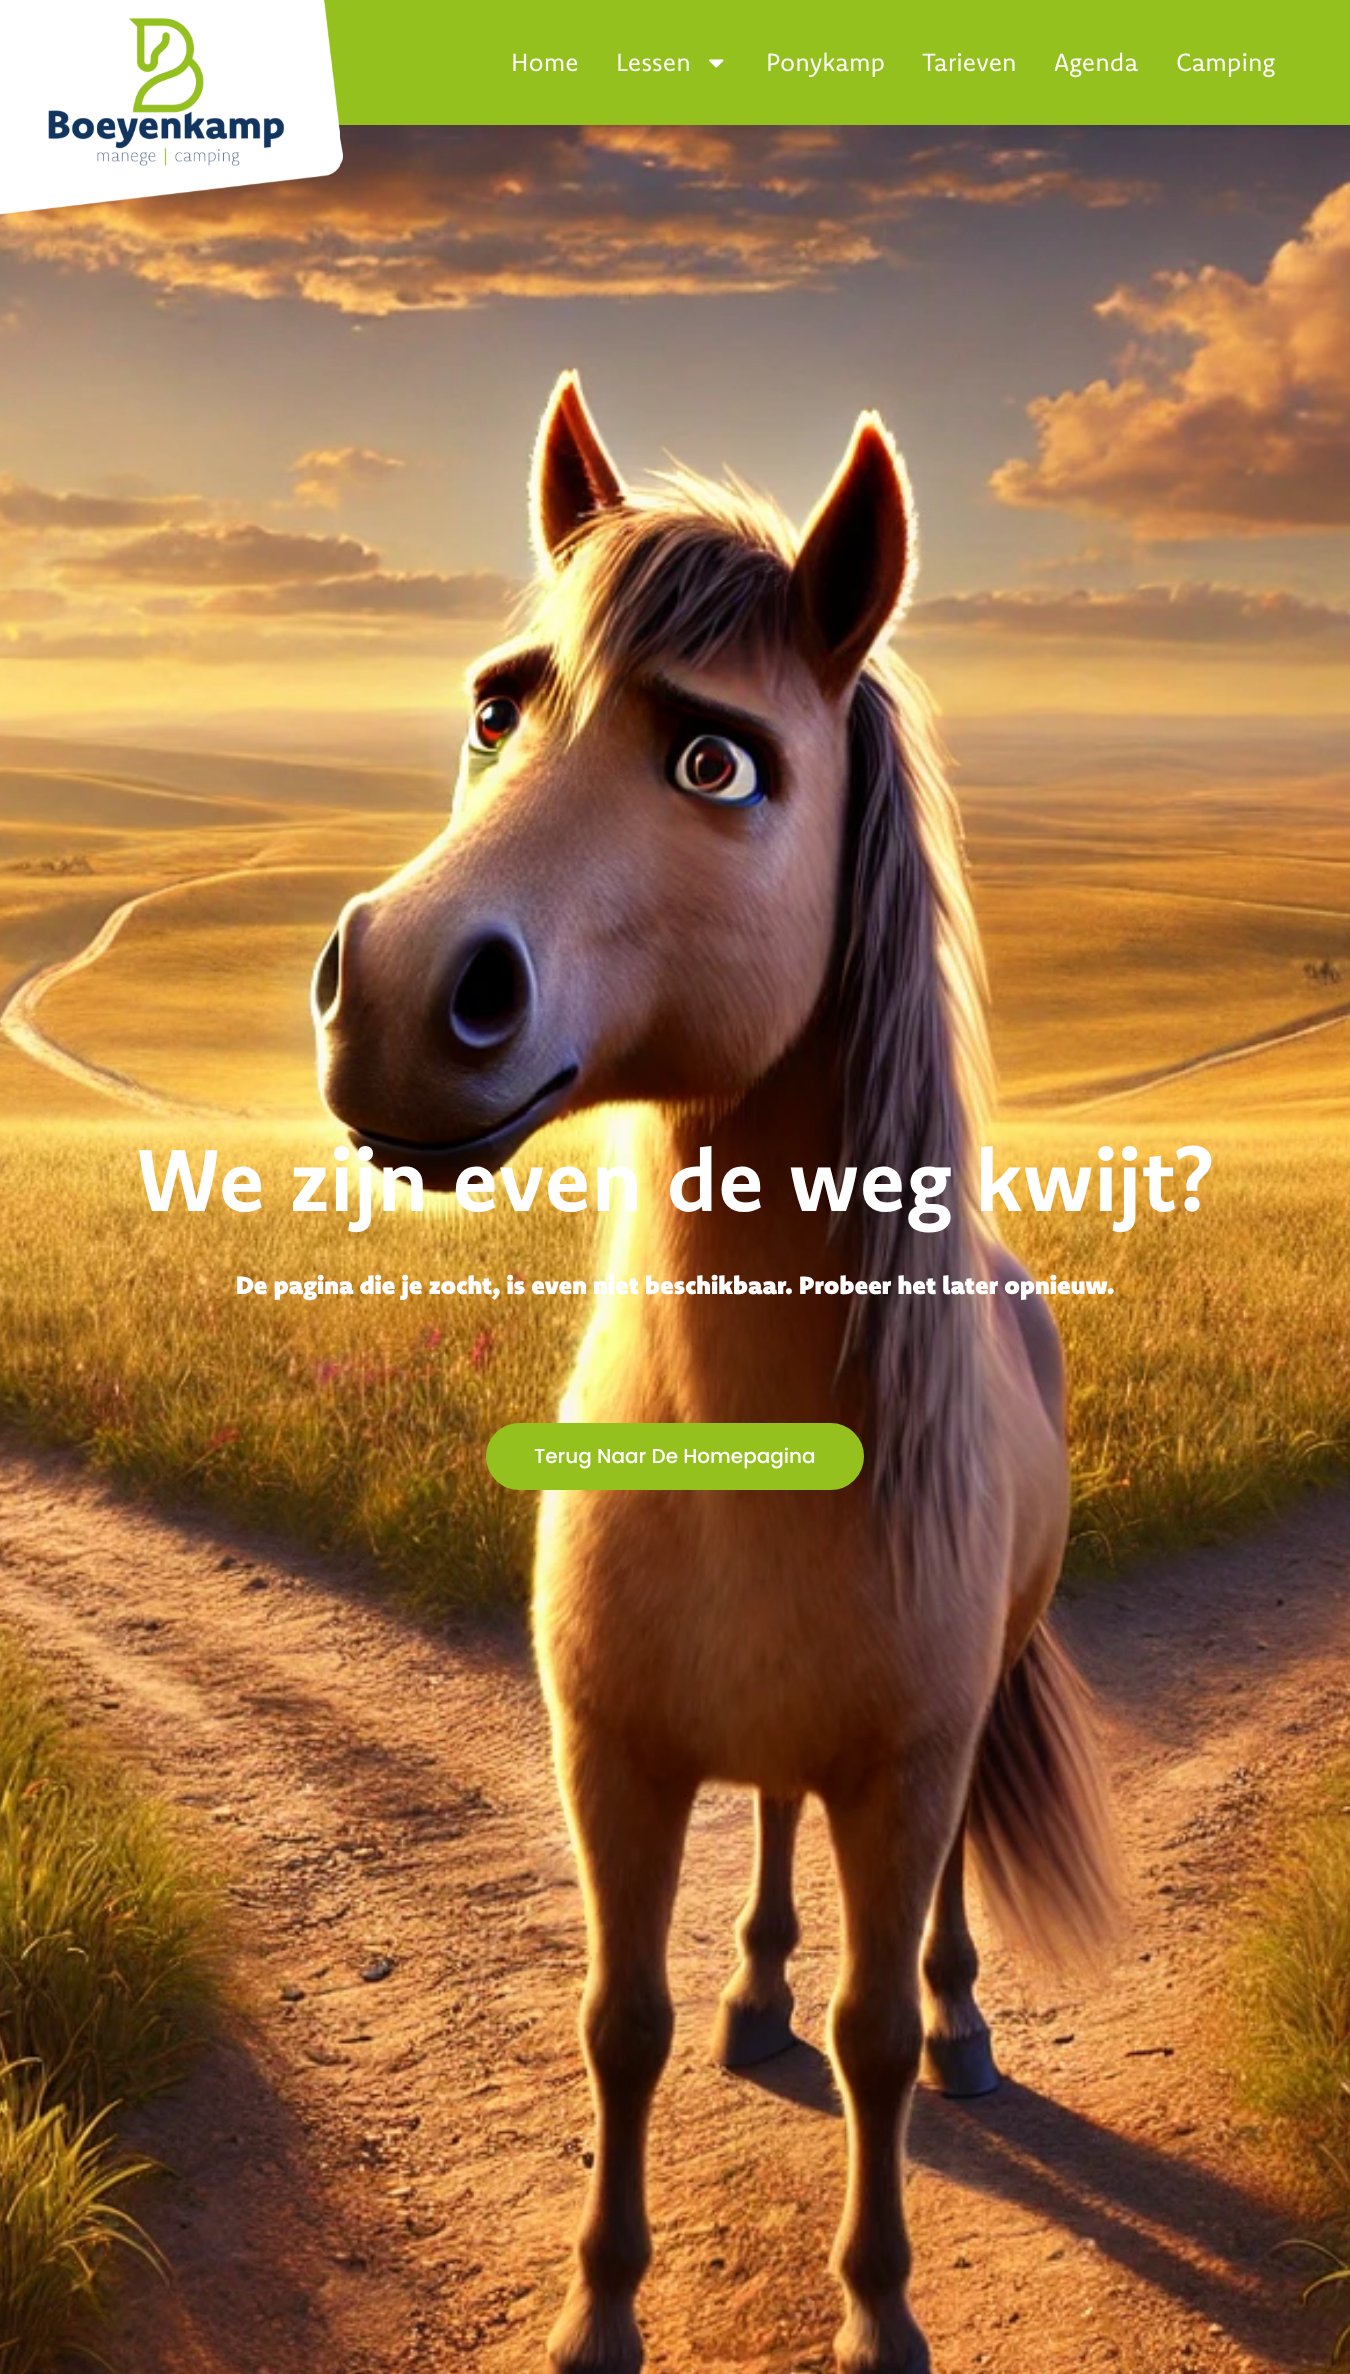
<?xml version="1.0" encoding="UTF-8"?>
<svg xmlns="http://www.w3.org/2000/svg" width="1350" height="2374">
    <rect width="100%" height="100%" fill="#FFFFFF"/>
    <rect x="323" y="0" width="1027" height="125" fill="#95C11F"/>
    <image x="0" y="125" width="1350" height="2249" href="img_03.png"/>
    <image x="0" y="0" width="343" height="215" href="img_01.png"/>
    <text x="511" y="71" font-family="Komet" font-size="25" fill="#FFFFFF">Home</text>
    <text x="616" y="71" font-family="Komet" font-size="25" fill="#FFFFFF">Lessen</text>
    <image x="709" y="59" width="15" height="9" href="img_02.png"/>
    <text x="766" y="71" font-family="Komet" font-size="25" fill="#FFFFFF">Ponykamp</text>
    <text x="922" y="71" font-family="Komet" font-size="25" fill="#FFFFFF">Tarieven</text>
    <text x="1054" y="71" font-family="Komet" font-size="25" fill="#FFFFFF">Agenda</text>
    <text x="1176" y="71" font-family="Komet" font-size="25" fill="#FFFFFF">Camping</text>
    <text x="136" y="1211" font-family="Komet" font-size="87.5" font-weight="700" fill="#FFFFFF">We zijn even de weg kwijt?</text>
    <text x="236" y="1294" font-family="Komet" font-size="25" font-weight="900" fill="#FFFFFF">De pagina die je zocht, is even niet beschikbaar. Probeer het later opnieuw.</text>
    <rect x="488" y="1425" width="374" height="63" rx="31.5" fill="#95C11F" stroke="#95C11F" stroke-width="4"/>
    <text x="534" y="1463" font-family="Poppins" font-size="20" font-weight="500" fill="#FFFFFF">Terug Naar De Homepagina</text>
</svg>
